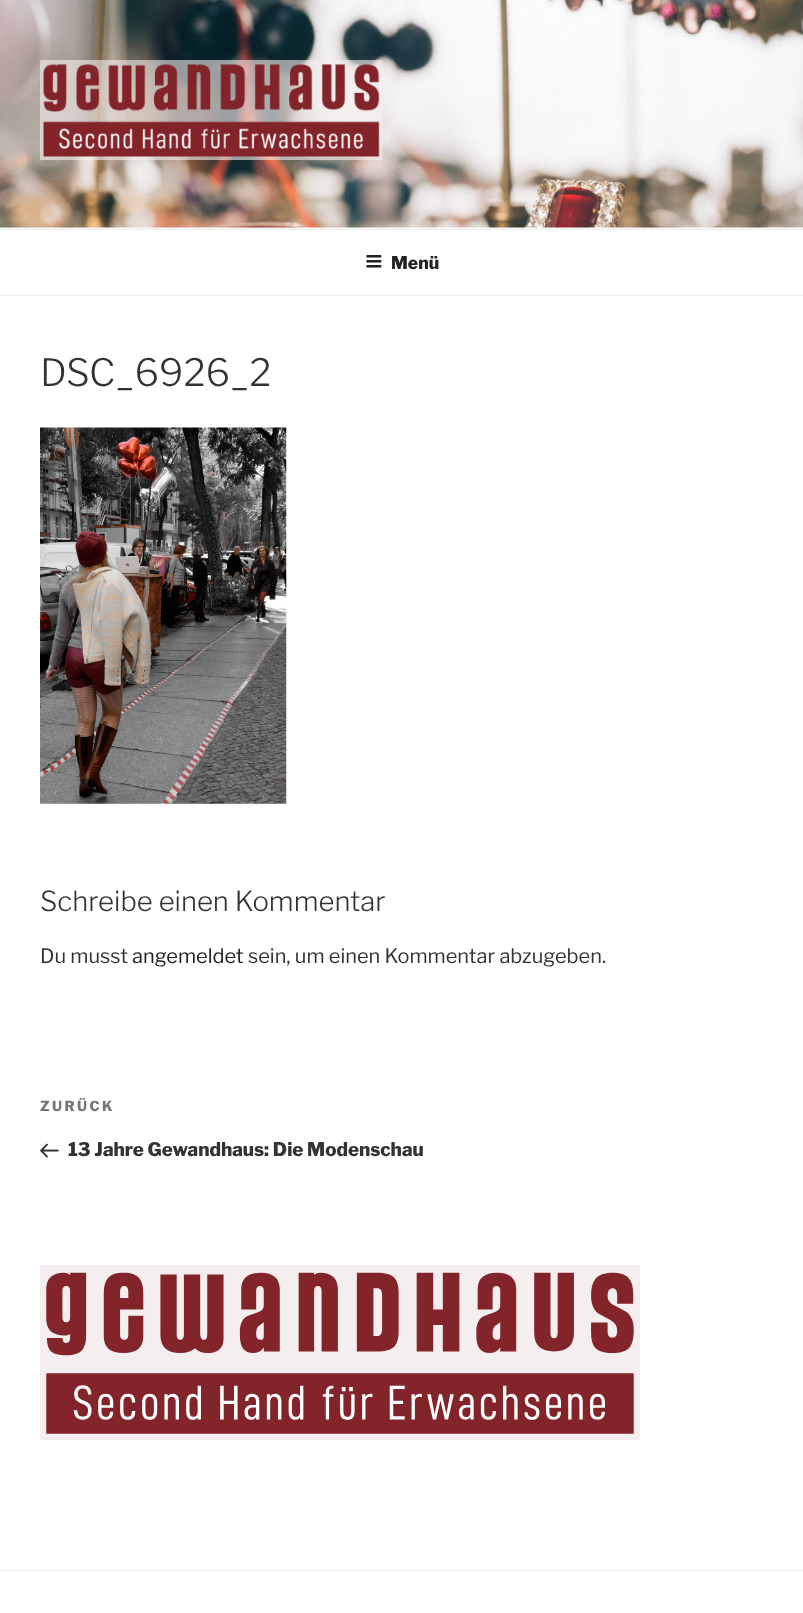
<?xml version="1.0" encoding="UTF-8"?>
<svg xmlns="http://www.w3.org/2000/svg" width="803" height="1613">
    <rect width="100%" height="100%" fill="#FFFFFF"/>
    <rect x="0" y="227" width="803" height="2" fill="#FAFAFA"/>
    <image x="0" y="0" width="803" height="228" href="img_01.png"/>
    <image x="40" y="60" width="343" height="100" href="img_02.png"/>
    <rect x="0" y="229" width="803" height="1" fill="#EEEEEE"/>
    <rect x="0" y="295" width="803" height="1" fill="#EEEEEE"/>
    <image x="366" y="255" width="16" height="13" href="img_03.png"/>
    <text x="391" y="269" font-family="Libre Franklin" font-size="17.5" font-weight="800" fill="#222222">Menü</text>
    <text x="40" y="386" font-family="Libre Franklin" font-size="37.5" font-weight="100" fill="#333333">DSC_6926_2</text>
    <image x="40" y="427" width="247" height="377" href="img_04.png"/>
    <text x="40" y="911" font-family="Libre Franklin" font-size="27.5" font-weight="100" fill="#333333">Schreibe einen Kommentar</text>
    <text x="40" y="963" font-family="'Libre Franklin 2'" font-size="20" font-weight="100" fill="#333333">Du musst</text>
    <text x="132" y="963" font-family="'Libre Franklin 2'" font-size="20" font-weight="100" fill="#222222">angemeldet</text>
    <text x="248" y="963" font-family="'Libre Franklin 2'" font-size="20" font-weight="100" fill="#333333">sein, um einen Kommentar abzugeben.</text>
    <text x="40" y="1111" font-family="Libre Franklin" font-size="13.75" font-weight="800" letter-spacing="2.5" fill="#767676">ZURÜCK</text>
    <image x="40" y="1143" width="19" height="15" href="img_05.png"/>
    <text x="68" y="1156" font-family="Libre Franklin" font-size="18.75" font-weight="800" fill="#333333">13 Jahre Gewandhaus: Die Modenschau</text>
    <image x="40" y="1265" width="600" height="175" href="img_06.png"/>
    <rect x="0" y="1570" width="803" height="1" fill="#EEEEEE"/>
</svg>
